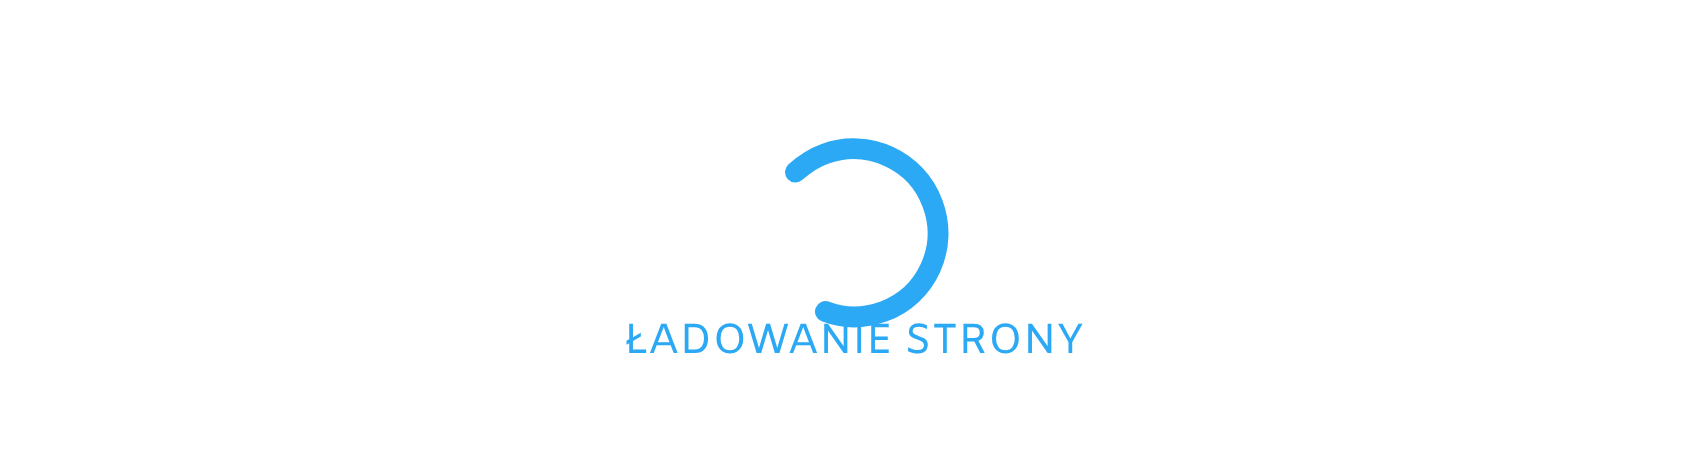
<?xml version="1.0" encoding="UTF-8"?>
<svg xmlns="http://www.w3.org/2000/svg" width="1707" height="464">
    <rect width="100%" height="100%" fill="#FFFFFF"/>
    <path d="M 795.5 172 C 804 164.5 813.5 158 824.5 154 C 868 138 916.5 160 932.5 203.5 C 949 247 927 295.5 883.5 311.5 C 864 318.5 843.5 318.5 825.5 311.5" fill="none" stroke="#2CA9F4" stroke-width="21" stroke-linecap="round"/>
    <text x="624" y="353" font-family="Amiko" font-size="42" fill="#2CA9F4">ŁADOWANIE STRONY</text>
</svg>
